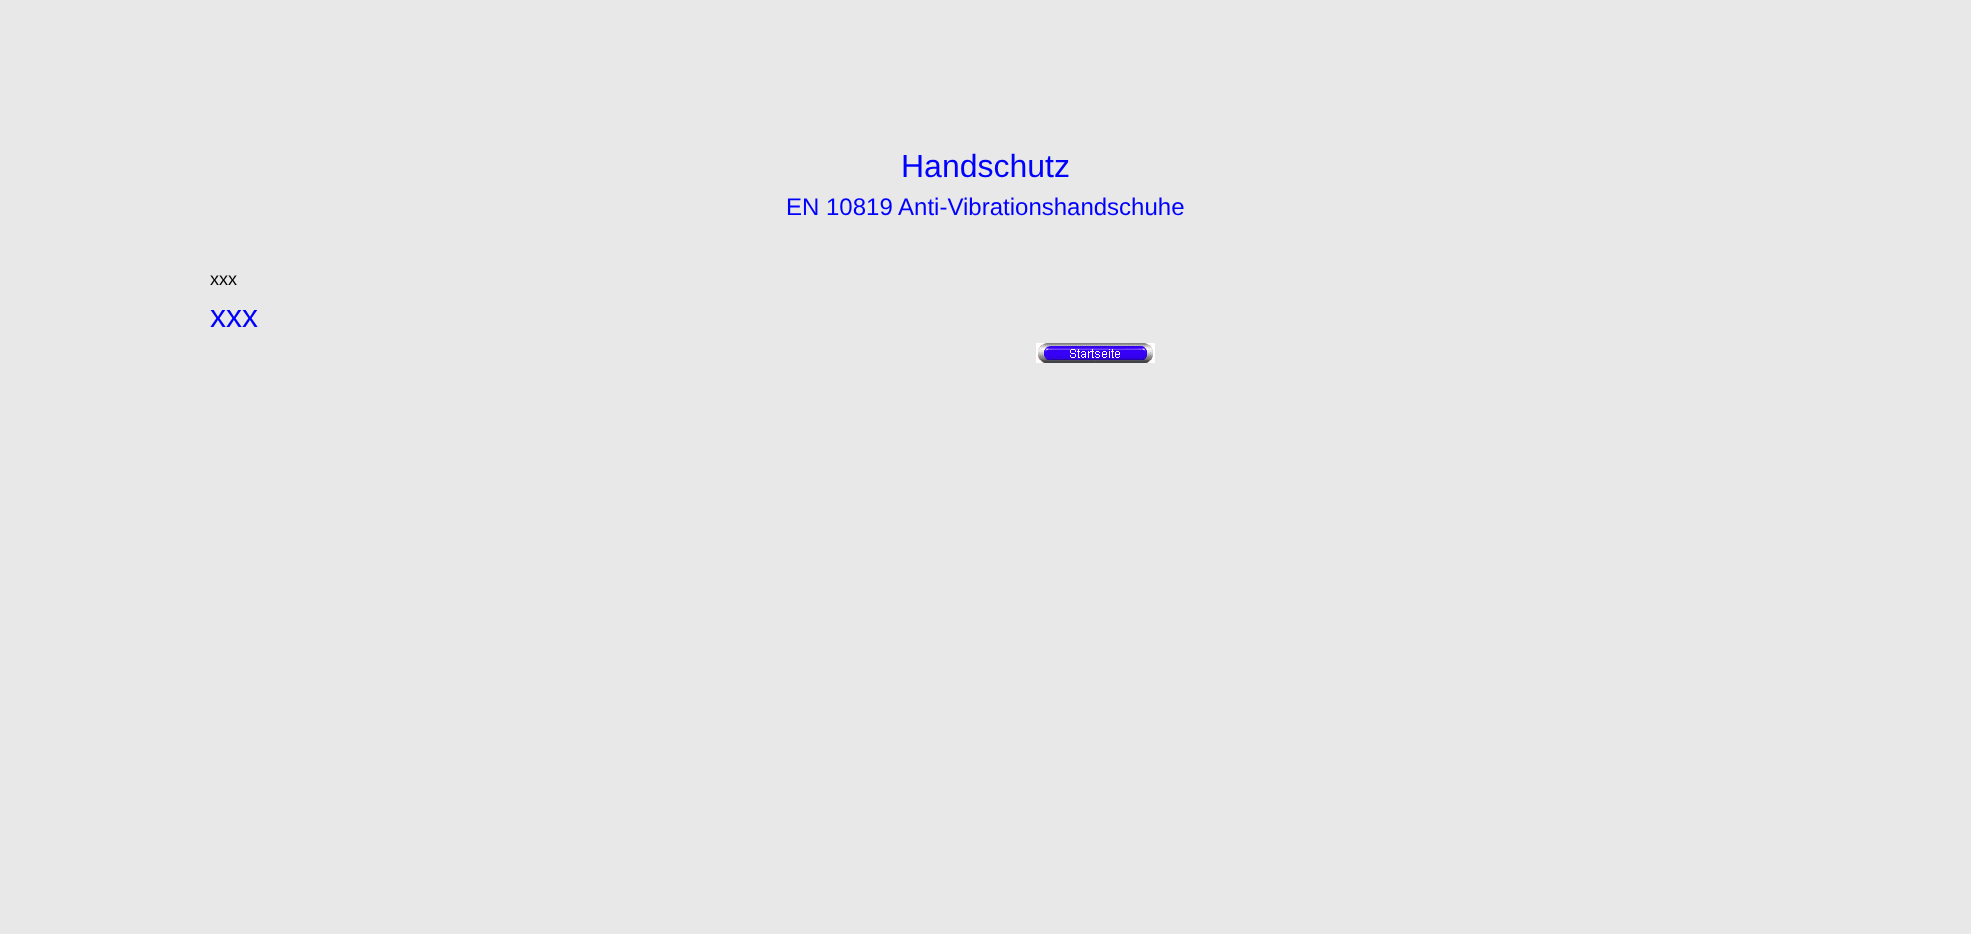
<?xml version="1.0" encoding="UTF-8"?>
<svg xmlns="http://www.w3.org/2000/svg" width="1971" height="934">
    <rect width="100%" height="100%" fill="#E8E8E8"/>
    <text x="901" y="177" font-family="Liberation Sans" font-size="32" fill="#0000FF">Handschutz</text>
    <text x="786" y="215" font-family="Liberation Sans" font-size="24" fill="#0000FF">EN 10819 Anti-Vibrationshandschuhe</text>
    <text x="210" y="285" font-family="Liberation Sans" font-size="18" fill="#000000">xxx</text>
    <text x="210" y="327" font-family="Liberation Sans" font-size="32" fill="#0000FF">xxx</text>
    <image x="1036" y="343" width="119" height="20" href="img_01.png"/>
</svg>
